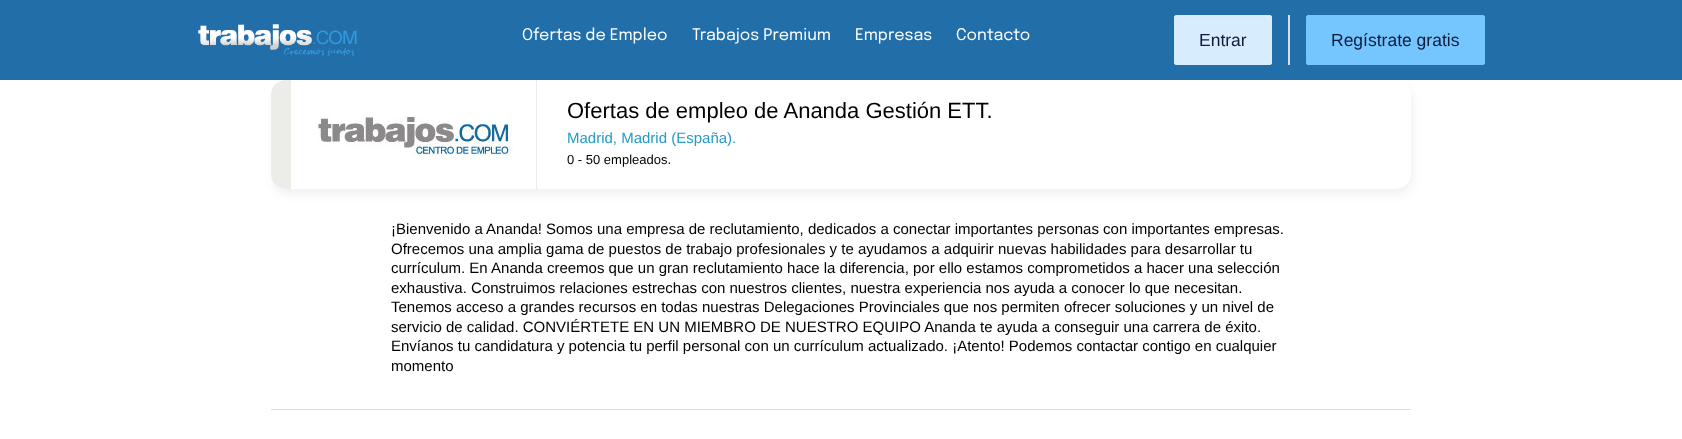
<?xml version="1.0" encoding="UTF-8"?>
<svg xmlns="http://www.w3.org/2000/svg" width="1682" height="439">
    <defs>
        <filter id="blur1" x="-50%" y="-200%" width="200%" height="500%"><feGaussianBlur stdDeviation="5"/></filter>
    </defs>
    <rect width="100%" height="100%" fill="#FFFFFF"/>
    <rect x="273" y="86" width="1140" height="109" rx="15" fill="#000000" fill-opacity="0.05" filter="url(#blur1)"/>
    <rect x="0" y="0" width="1682" height="80" fill="#216EA8"/>
    <image x="198" y="24" width="159" height="32" href="img_01.png"/>
    <text x="522" y="40" font-family="Epilogue" font-size="16" fill="#FFFFFF">Ofertas de Empleo</text>
    <text x="692" y="40" font-family="Epilogue" font-size="16" fill="#FFFFFF">Trabajos Premium</text>
    <text x="855" y="40" font-family="Epilogue" font-size="16" fill="#FFFFFF">Empresas</text>
    <text x="956" y="40" font-family="Epilogue" font-size="16" fill="#FFFFFF">Contacto</text>
    <rect x="1174.5" y="15.5" width="97" height="49" rx="1.5" fill="#D7ECFC" stroke="#D7ECFC"/>
    <text x="1199" y="46" font-family="Liberation Sans" font-size="17.5" fill="#0C1C3B">Entrar</text>
    <rect x="1288" y="15" width="2" height="50" fill="#D6DDEB"/>
    <rect x="1306.5" y="15.5" width="178" height="49" rx="1.5" fill="#75C5FF" stroke="#75C5FF"/>
    <text x="1331" y="46" font-family="Liberation Sans" font-size="17.5" fill="#0C1C3B">Regístrate gratis</text>
    <rect x="271" y="80" width="1140" height="109" rx="15" fill="#FFFFFF"/>
    <path d="M 286 80 H 291 V 189 H 286 C 277.5 189 271 182.5 271 174 V 95 C 271 86.5 277.5 80 286 80 Z" fill="#ECECE8"/>
    <rect x="536" y="80" width="1" height="109" fill="#ECECE8"/>
    <image x="317" y="116" width="196" height="40" href="img_02.png"/>
    <text x="567" y="118" font-family="Liberation Sans" font-size="22" fill="#000000">Ofertas de empleo de Ananda Gestión ETT.</text>
    <text x="567" y="143" font-family="Liberation Sans" font-size="15" fill="#249BC8">Madrid, Madrid (España).</text>
    <text x="567" y="164" font-family="Liberation Sans" font-size="13" fill="#000000">0 - 50 empleados.</text>
    <text font-family="Liberation Sans" font-size="15" fill="#000000">
        <tspan x="391" y="234">¡Bienvenido a Ananda! Somos una empresa de reclutamiento, dedicados a conectar importantes personas con importantes empresas.</tspan>
        <tspan x="391" y="254">Ofrecemos una amplia gama de puestos de trabajo profesionales y te ayudamos a adquirir nuevas habilidades para desarrollar tu</tspan>
        <tspan x="391" y="273">currículum. En Ananda creemos que un gran reclutamiento hace la diferencia, por ello estamos comprometidos a hacer una selección</tspan>
        <tspan x="391" y="293">exhaustiva. Construimos relaciones estrechas con nuestros clientes, nuestra experiencia nos ayuda a conocer lo que necesitan.</tspan>
        <tspan x="391" y="312">Tenemos acceso a grandes recursos en todas nuestras Delegaciones Provinciales que nos permiten ofrecer soluciones y un nivel de</tspan>
        <tspan x="391" y="332">servicio de calidad. CONVIÉRTETE EN UN MIEMBRO DE NUESTRO EQUIPO Ananda te ayuda a conseguir una carrera de éxito.</tspan>
        <tspan x="391" y="351">Envíanos tu candidatura y potencia tu perfil personal con un currículum actualizado. ¡Atento! Podemos contactar contigo en cualquier</tspan>
        <tspan x="391" y="371">momento</tspan>
    </text>
    <rect x="271" y="409" width="1140" height="1" fill="#DDDDDD"/>
</svg>
